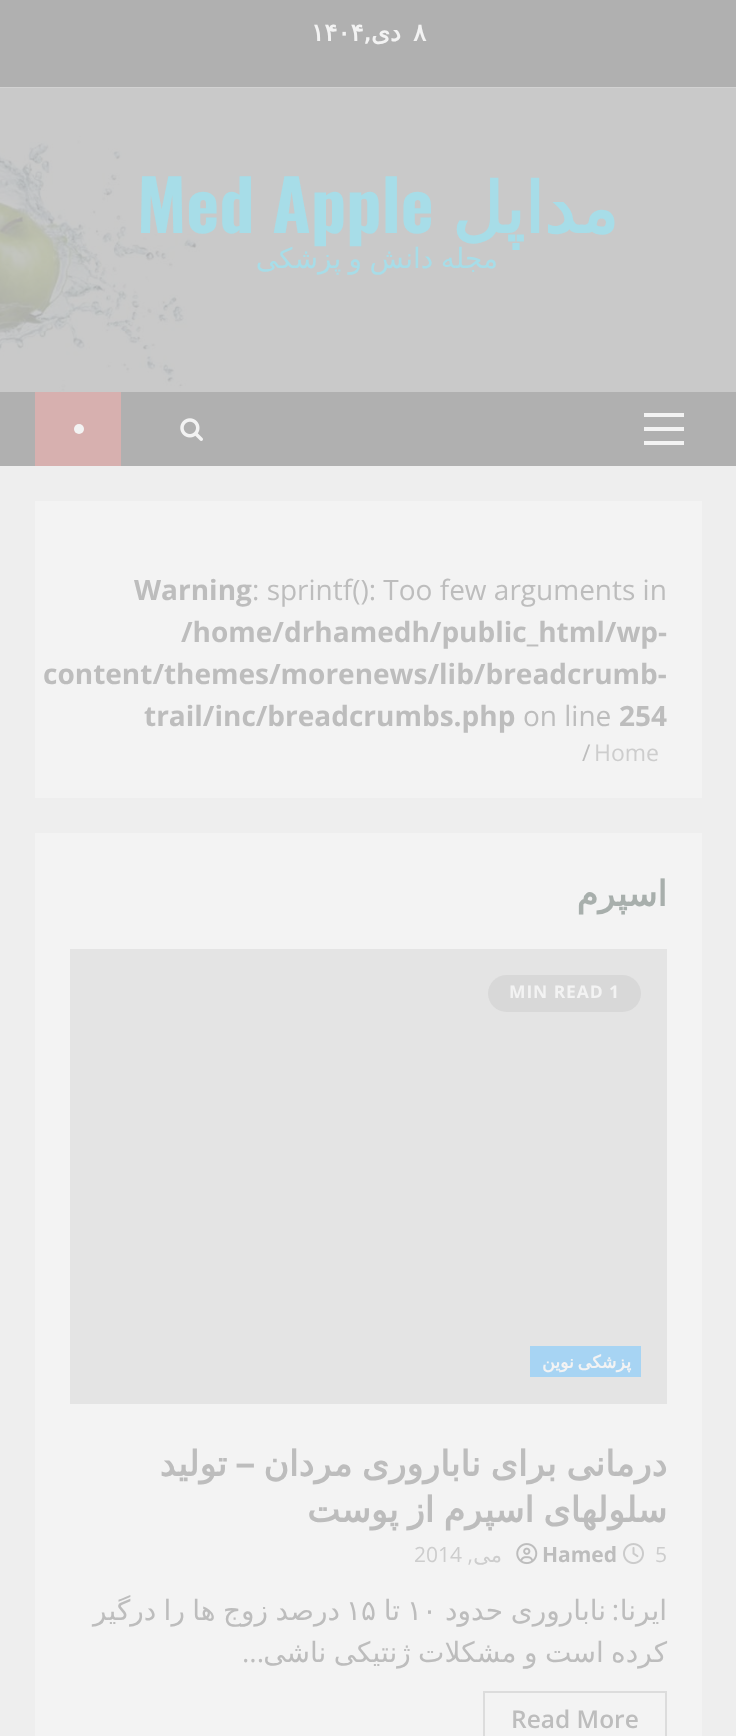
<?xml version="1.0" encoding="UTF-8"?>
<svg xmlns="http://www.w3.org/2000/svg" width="736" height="1736">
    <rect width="100%" height="100%" fill="#EEEEEE"/>
    <rect x="0" y="0" width="736" height="88" fill="#B0B0B0"/>
    <text x="311" y="41" font-family="DejaVu Sans" font-size="24.5" font-weight="700" fill="#F3F3F3">۱۴۰۴</text>
    <text x="401" y="41" font-family="DejaVu Sans" font-size="24.5" font-weight="700" direction="rtl" fill="#F3F3F3">دی,</text>
    <text x="413" y="41" font-family="DejaVu Sans" font-size="24.5" font-weight="700" fill="#F3F3F3">۸</text>
    <image x="0" y="87" width="736" height="305" href="img_01.png"/>
    <text x="137" y="233" font-family="Oswald" font-size="70" font-weight="700" fill="#A7DDE8">Med Apple</text>
    <text x="618" y="233" font-family="DejaVu Sans" font-size="70" font-weight="700" direction="rtl" fill="#A7DDE8">مداپل</text>
    <text x="498" y="268" word-spacing="-1.5" font-family="DejaVu Sans" font-size="28" direction="rtl" fill="#A7DDE8">مجله دانش و پزشکی</text>
    <rect x="0" y="392" width="736" height="74" fill="#B0B0B0"/>
    <rect x="35" y="392" width="86" height="74" fill="#D7B0AF"/>
    <circle cx="79" cy="429" r="5" fill="#F3F3F3"/>
    <image x="180" y="418" width="23" height="23" href="img_02.png"/>
    <rect x="644" y="427" width="40" height="4" fill="#F3F3F3"/>
    <rect x="644" y="413" width="40" height="4" fill="#F3F3F3"/>
    <rect x="644" y="441" width="40" height="4" fill="#F3F3F3"/>
    <rect x="35" y="501" width="667" height="297" fill="#F3F3F3"/>
    <text x="134" y="600" font-family="Open Sans" font-size="28" font-weight="700" fill="#BDBDBD">Warning</text>
    <text x="252" y="600" font-family="Open Sans" font-size="28" fill="#BDBDBD">: sprintf(): Too few arguments in</text>
    <text x="181" y="642" font-family="Open Sans" font-size="28" font-weight="700" fill="#BDBDBD">/home/drhamedh/public_html/wp-</text>
    <text x="43" y="684" font-family="Open Sans" font-size="28" font-weight="700" fill="#BDBDBD">content/themes/morenews/lib/breadcrumb-</text>
    <text x="144" y="726" font-family="Open Sans" font-size="28" font-weight="700" fill="#BDBDBD">trail/inc/breadcrumbs.php</text>
    <text x="523" y="726" font-family="Open Sans" font-size="28" fill="#BDBDBD">on line</text>
    <text x="619" y="726" font-family="Open Sans" font-size="28" font-weight="700" fill="#BDBDBD">254</text>
    <text x="582" y="761" font-family="Open Sans" font-size="23" fill="#BDBDBD">/</text>
    <text x="594" y="761" font-family="Open Sans" font-size="23" fill="#CDCDCD">Home</text>
    <rect x="35" y="833" width="667" height="903" fill="#F3F3F3"/>
    <text x="667" y="906" font-family="DejaVu Sans" font-size="35" font-weight="700" direction="rtl" fill="#A8AFAC">اسپرم</text>
    <rect x="70" y="949" width="597" height="455" fill="#E4E4E4"/>
    <rect x="488" y="975" width="153" height="37" rx="18.5" fill="#D8D8D8"/>
    <text x="509" y="998" font-family="Open Sans" font-size="17.5" font-weight="700" letter-spacing="0.9" fill="#F3F3F3">MIN READ 1</text>
    <rect x="530" y="1346" width="111" height="31" fill="#A7D4F3"/>
    <text x="631" y="1368" word-spacing="-2" font-family="DejaVu Sans" font-size="17.5" font-weight="700" letter-spacing="0.25" direction="rtl" fill="#F3F3F3">پزشکی نوین</text>
    <text x="227" y="1476" font-family="DejaVu Sans" font-size="35" font-weight="700" direction="rtl" fill="#BDBDBD">تولید</text>
    <text x="255" y="1476" font-family="Oswald" font-size="35" font-weight="700" direction="rtl" fill="#BDBDBD">–</text>
    <text font-family="DejaVu Sans" font-size="35" font-weight="700" direction="rtl" fill="#BDBDBD">
        <tspan x="667" y="1476" word-spacing="-1.5">درمانی برای ناباروری مردان</tspan>
        <tspan x="667" y="1522" word-spacing="-2">سلولهای اسپرم از پوست</tspan>
    </text>
    <text x="414" y="1562" font-family="Open Sans" font-size="21" fill="#CDCDCD">2014</text>
    <text x="473" y="1562" font-family="Open Sans" font-size="21" direction="rtl" fill="#CDCDCD">,</text>
    <text x="502" y="1562" font-family="DejaVu Sans" font-size="21" direction="rtl" fill="#CDCDCD">می</text>
    <image x="516" y="1543" width="22" height="22" href="img_03.png"/>
    <text x="542" y="1562" font-family="Open Sans" font-size="21" font-weight="700" fill="#BDBDBD">Hamed</text>
    <image x="623" y="1543" width="21" height="22" href="img_04.png"/>
    <text x="655" y="1562" font-family="Open Sans" font-size="21" fill="#CDCDCD">5</text>
    <text x="340" y="1620" word-spacing="-1.5" font-family="DejaVu Sans" font-size="28" direction="rtl" fill="#BDBDBD">درصد زوج ها را درگیر</text>
    <text x="346" y="1620" font-family="DejaVu Sans" font-size="28" fill="#BDBDBD">۱۵</text>
    <text x="400" y="1620" font-family="DejaVu Sans" font-size="28" direction="rtl" fill="#BDBDBD">تا</text>
    <text x="407" y="1620" font-family="DejaVu Sans" font-size="28" fill="#BDBDBD">۱۰</text>
    <text x="606" y="1620" word-spacing="-1" font-family="DejaVu Sans" font-size="28" direction="rtl" fill="#BDBDBD">ناباروری حدود</text>
    <text x="619" y="1620" font-family="Open Sans" font-size="28" direction="rtl" fill="#BDBDBD">:</text>
    <text x="667" y="1620" font-family="DejaVu Sans" font-size="28" direction="rtl" fill="#BDBDBD">ایرنا</text>
    <text x="264" y="1662" font-family="Open Sans" font-size="28" direction="rtl" fill="#BDBDBD">...</text>
    <text x="667" y="1662" word-spacing="-1.5" font-family="DejaVu Sans" font-size="28" direction="rtl" fill="#BDBDBD">کرده است و مشکلات ژنتیکی ناشی</text>
    <rect x="484" y="1692" width="182" height="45" fill="none" stroke="#DCDCDC" stroke-width="2"/>
    <text x="511" y="1728" font-family="Open Sans" font-size="24.5" font-weight="600" fill="#BDBDBD">Read More</text>
</svg>
